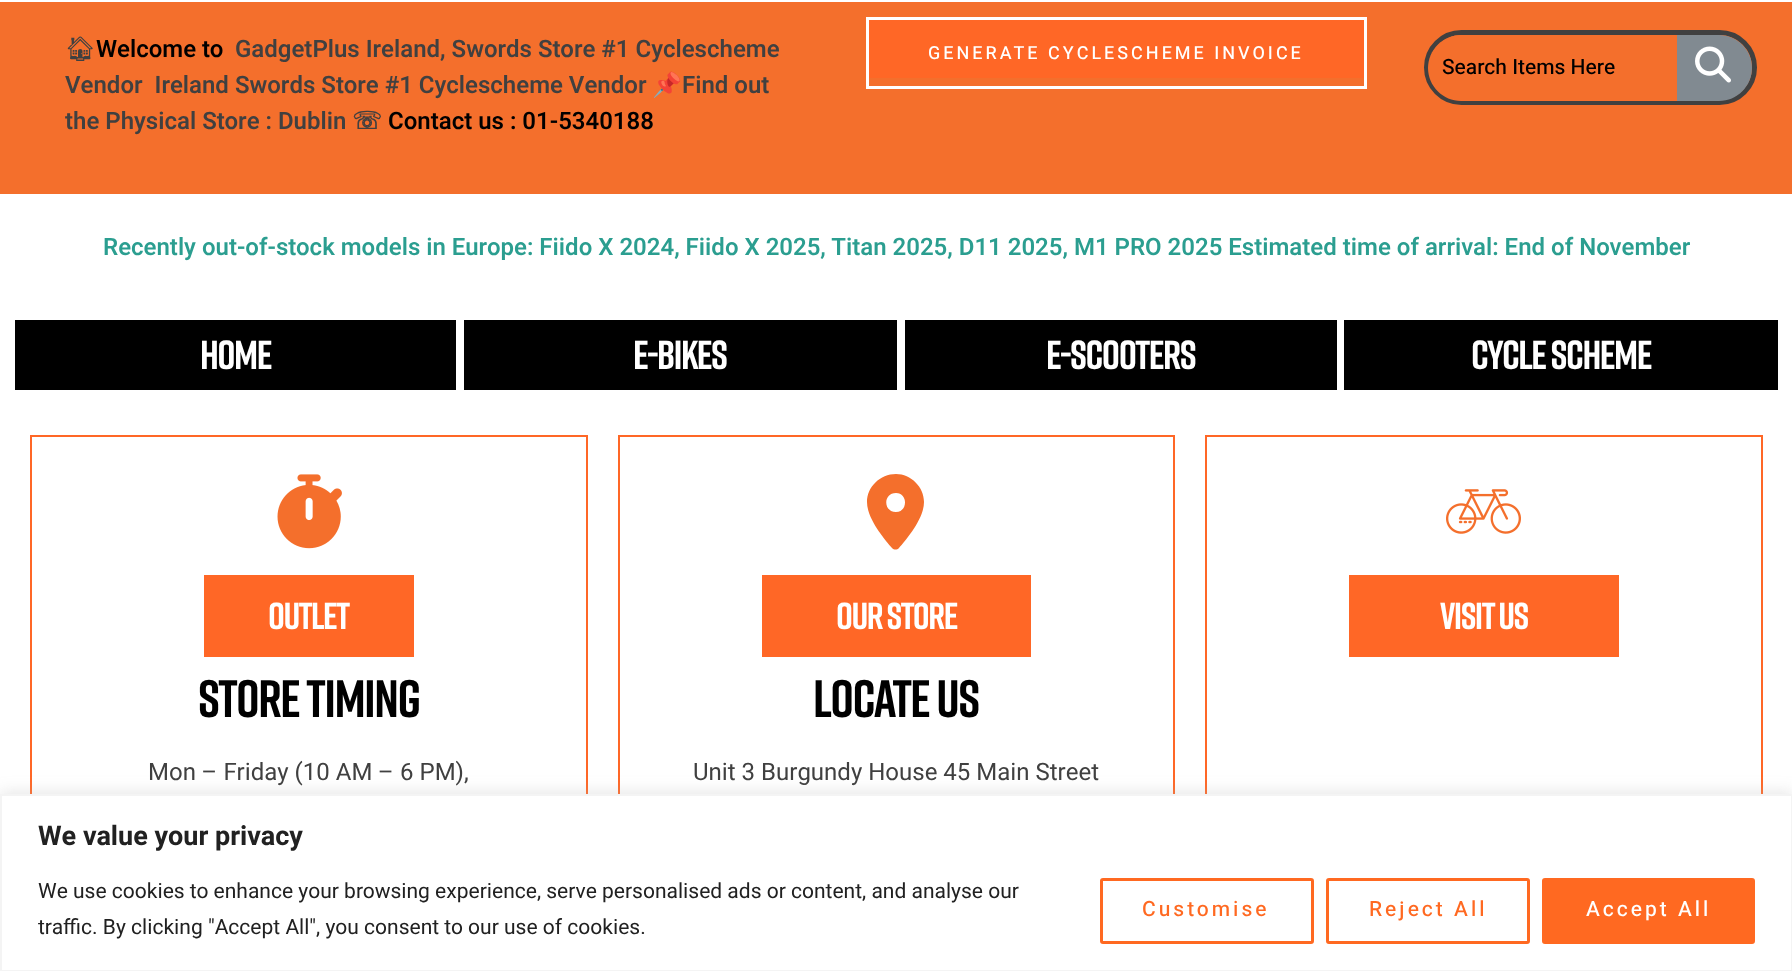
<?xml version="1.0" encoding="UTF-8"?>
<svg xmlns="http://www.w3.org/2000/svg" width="1792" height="971">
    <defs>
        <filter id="blur1" x="-50%" y="-200%" width="200%" height="500%"><feGaussianBlur stdDeviation="7.5"/></filter>
    </defs>
    <rect width="100%" height="100%" fill="#FFFFFF"/>
    <rect x="0" y="2" width="1792" height="192" fill="#F46F2C"/>
    <text x="65" y="57" font-family="Noto Emoji" font-size="24" font-weight="600" fill="#404040">🏠︎</text>
    <text x="96" y="57" font-family="Heebo" font-size="24" font-weight="600" fill="#000000">Welcome to</text>
    <text x="235" y="57" font-family="Heebo" font-size="24" font-weight="600" fill="#404040">GadgetPlus Ireland, Swords Store #1 Cyclescheme</text>
    <text x="65" y="93" font-family="Heebo" font-size="24" font-weight="600" fill="#404040" xml:space="preserve">Vendor  Ireland Swords Store #1 Cyclescheme Vendor</text>
    <text x="652" y="93" font-family="Noto Color Emoji" font-size="24" font-weight="700" fill="#404040">📌</text>
    <text x="682" y="93" font-family="Heebo" font-size="24" font-weight="600" fill="#404040">Find out</text>
    <text x="65" y="129" font-family="Heebo" font-size="24" font-weight="600" fill="#404040">the Physical Store : Dublin</text>
    <text x="352" y="129" font-family="DejaVu Sans" font-size="24" font-weight="700" fill="#404040">☏</text>
    <text x="388" y="129" font-family="Heebo" font-size="24" font-weight="600" fill="#000000">Contact us : 01-5340188</text>
    <rect x="869" y="20" width="495" height="58" fill="#FF6726"/>
    <rect x="867.5" y="18.5" width="498" height="69" fill="none" stroke="#FFFFFF" stroke-width="3"/>
    <text x="928" y="59" font-family="Heebo" font-size="18" font-weight="500" letter-spacing="3" fill="#FFFFFF">GENERATE CYCLESCHEME INVOICE</text>
    <rect x="1426.5" y="32.5" width="328" height="70" rx="35" fill="none" stroke="#404040" stroke-width="5"/>
    <path d="M 1461 35 H 1677 V 101 H 1461 C 1443 101 1428 86 1428 68 C 1428 50 1443 35 1461 35 Z" fill="#F46F2C"/>
    <text x="1442" y="74" font-family="Heebo" font-size="21" font-weight="500" fill="#000000">Search Items Here</text>
    <path d="M 1677 35 H 1719 C 1737 35 1752 50 1752 68 C 1752 86 1737 101 1719 101 H 1677 Z" fill="#818A91"/>
    <image x="1695" y="46" width="36" height="37" href="img_01.png"/>
    <text x="103" y="255" font-family="Heebo" font-size="24" font-weight="600" fill="#2B9E90">Recently out-of-stock models in Europe: Fiido X 2024, Fiido X 2025, Titan 2025, D11 2025, M1 PRO 2025 Estimated time of arrival: End of November</text>
    <rect x="15" y="320" width="441" height="70" fill="#000000"/>
    <text x="200" y="369" font-family="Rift" font-size="40.5" font-weight="700" letter-spacing="-1.5" fill="#FFFFFF">HOME</text>
    <rect x="464" y="320" width="433" height="70" fill="#000000"/>
    <text x="633" y="369" font-family="Rift" font-size="40.5" font-weight="700" letter-spacing="-1.5" fill="#FFFFFF">E-BIKES</text>
    <rect x="905" y="320" width="432" height="70" fill="#000000"/>
    <text x="1046" y="369" font-family="Rift" font-size="40.5" font-weight="700" letter-spacing="-1.5" fill="#FFFFFF">E-SCOOTERS</text>
    <rect x="1344" y="320" width="434" height="70" fill="#000000"/>
    <text x="1471" y="369" font-family="Rift" font-size="40.5" font-weight="700" letter-spacing="-1.5" fill="#FFFFFF">CYCLE SCHEME</text>
    <rect x="31" y="436" width="556" height="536" fill="none" stroke="#FF6726" stroke-width="2"/>
    <image x="277" y="474" width="65" height="75" href="img_02.png"/>
    <rect x="204" y="575" width="210" height="82" fill="#FF6726"/>
    <text x="268" y="629" font-family="Rift" font-size="37.5" font-weight="700" letter-spacing="-1.5" fill="#FFFFFF">OUTLET</text>
    <text x="198" y="717" font-family="Rift" font-size="52.5" font-weight="700" letter-spacing="-1.5" fill="#000000">Store Timing</text>
    <text x="148" y="780" font-family="Heebo" font-size="24" fill="#404040">Mon – Friday (10 AM – 6 PM),</text>
    <rect x="619" y="436" width="555" height="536" fill="none" stroke="#FF6726" stroke-width="2"/>
    <path d="M 867 502 C 867 487 880 474 896 474 C 911 474 924 487 924 502 C 924 519 906 540 899 548 C 897 550 894 550 892 548 C 885 540 867 519 867 502 Z M 896 512 C 908 512 908 493 896 493 C 883 493 883 512 896 512 Z" fill="#F46F2C"/>
    <rect x="762" y="575" width="269" height="82" fill="#FF6726"/>
    <text x="836" y="629" font-family="Rift" font-size="37.5" font-weight="700" letter-spacing="-1.5" fill="#FFFFFF">OUR STORE</text>
    <text x="813" y="717" font-family="Rift" font-size="52.5" font-weight="700" letter-spacing="-1.5" fill="#000000">Locate Us</text>
    <text x="693" y="780" font-family="Heebo" font-size="24" fill="#404040">Unit 3 Burgundy House 45 Main Street</text>
    <rect x="1206" y="436" width="556" height="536" fill="none" stroke="#FF6726" stroke-width="2"/>
    <image x="1446" y="489" width="75" height="45" href="img_03.png"/>
    <rect x="1349" y="575" width="270" height="82" fill="#FF6726"/>
    <text x="1440" y="629" font-family="Rift" font-size="37.5" font-weight="700" letter-spacing="-1.5" fill="#FFFFFF">VISIT US</text>
    <rect x="0" y="792" width="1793" height="179" fill="#ACABAB" fill-opacity="0.3" filter="url(#blur1)"/>
    <rect x="1" y="795" width="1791" height="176" fill="#FFFFFF" stroke="#F4F4F4" stroke-width="2"/>
    <text x="38" y="845" font-family="Heebo" font-size="27" font-weight="700" fill="#212121">We value your privacy</text>
    <text font-family="Heebo" font-size="21" fill="#212121">
        <tspan x="38" y="898">We use cookies to enhance your browsing experience, serve personalised ads or content, and analyse our</tspan>
        <tspan x="38" y="934">traffic. By clicking "Accept All", you consent to our use of cookies.</tspan>
    </text>
    <rect x="1101.5" y="879.5" width="211" height="63" rx="1.5" fill="none" stroke="#FF6921" stroke-width="3"/>
    <text x="1142" y="916" font-family="Heebo" font-size="21" font-weight="500" letter-spacing="3" fill="#FF6921">Customise</text>
    <rect x="1327.5" y="879.5" width="201" height="63" rx="1.5" fill="none" stroke="#FF6921" stroke-width="3"/>
    <text x="1369" y="916" font-family="Heebo" font-size="21" font-weight="500" letter-spacing="3" fill="#FF6921">Reject All</text>
    <rect x="1543.5" y="879.5" width="210" height="63" rx="1.5" fill="#FF6921" stroke="#FF6921" stroke-width="3"/>
    <text x="1586" y="916" font-family="Heebo" font-size="21" font-weight="500" letter-spacing="3" fill="#FFFFFF">Accept All</text>
</svg>
